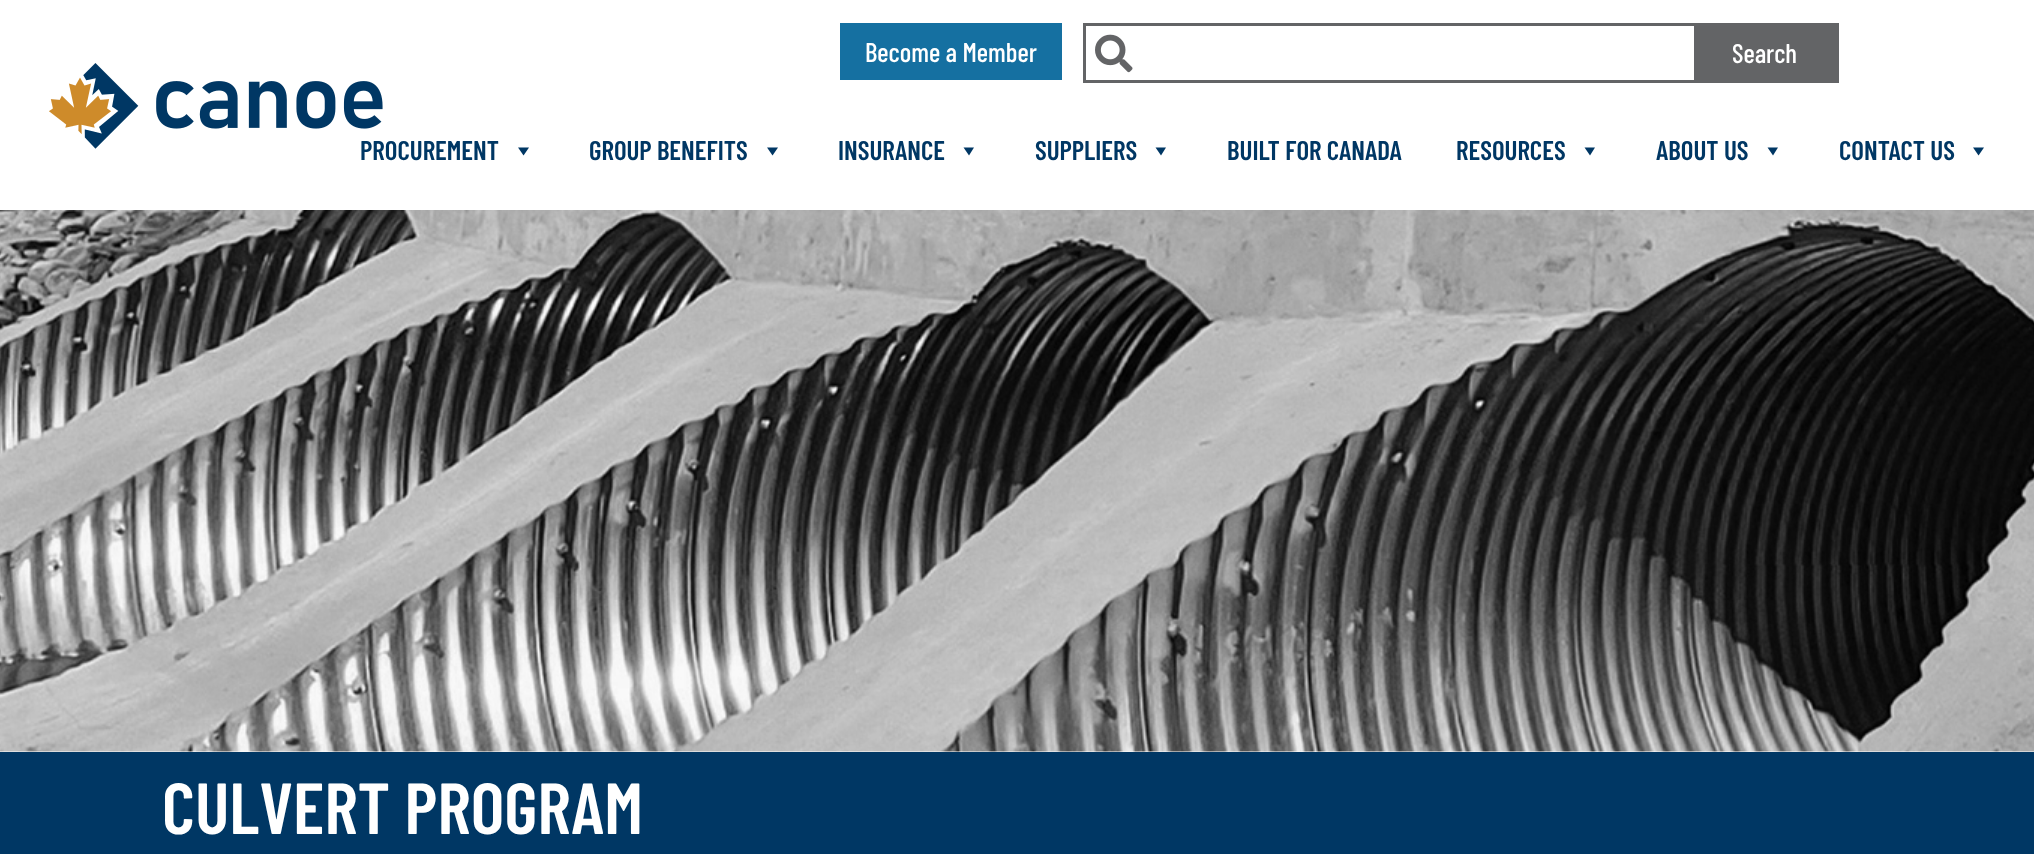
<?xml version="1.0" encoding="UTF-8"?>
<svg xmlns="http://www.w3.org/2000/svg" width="2034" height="854">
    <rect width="100%" height="100%" fill="#FFFFFF"/>
    <rect x="840" y="23" width="222" height="57" fill="#1570A1"/>
    <text x="865" y="62" font-family="Barlow Condensed" font-size="27" font-weight="500" fill="#FFFFFF">Become a Member</text>
    <image x="1095" y="34" width="38" height="39" href="img_01.png"/>
    <rect x="1084.5" y="24.5" width="753" height="57" fill="none" stroke="#636466" stroke-width="3"/>
    <rect x="1694" y="26" width="142" height="54" fill="#636466"/>
    <text x="1732" y="63" font-family="Barlow Condensed" font-size="27" font-weight="500" fill="#FFFFFF">Search</text>
    <text x="360" y="160" font-family="Barlow Condensed" font-size="27" font-weight="600" fill="#003764">PROCUREMENT</text>
    <image x="49" y="63" width="334" height="86" href="img_02.png"/>
    <path d="M 529 147.5 L 523.5 155.5 L 518 147.5 Z" fill="#003764"/>
    <text x="589" y="160" font-family="Barlow Condensed" font-size="27" font-weight="600" fill="#003764">GROUP BENEFITS</text>
    <path d="M 778 147.5 L 772.5 155.5 L 767 147.5 Z" fill="#003764"/>
    <text x="838" y="160" font-family="Barlow Condensed" font-size="27" font-weight="600" fill="#003764">INSURANCE</text>
    <path d="M 974 147.5 L 969 155.5 L 963.5 147.5 Z" fill="#003764"/>
    <text x="1035" y="160" font-family="Barlow Condensed" font-size="27" font-weight="600" fill="#003764">SUPPLIERS</text>
    <path d="M 1166 147.5 L 1161 155.5 L 1155.5 147.5 Z" fill="#003764"/>
    <text x="1227" y="160" font-family="Barlow Condensed" font-size="27" font-weight="600" fill="#003764">BUILT FOR CANADA</text>
    <text x="1456" y="160" font-family="Barlow Condensed" font-size="27" font-weight="600" fill="#003764">RESOURCES</text>
    <path d="M 1595 147.5 L 1590 155.5 L 1584.5 147.5 Z" fill="#003764"/>
    <text x="1656" y="160" font-family="Barlow Condensed" font-size="27" font-weight="600" fill="#003764">ABOUT US</text>
    <path d="M 1778 147.5 L 1773 155.5 L 1767.5 147.5 Z" fill="#003764"/>
    <text x="1839" y="160" font-family="Barlow Condensed" font-size="27" font-weight="600" fill="#003764">CONTACT US</text>
    <path d="M 1984 147.5 L 1978.5 155.5 L 1973 147.5 Z" fill="#003764"/>
    <image x="0" y="210" width="2034" height="542" href="img_03.png"/>
    <rect x="0" y="752" width="2034" height="102" fill="#003764"/>
    <text x="162" y="834" font-family="Barlow Condensed" font-size="72" font-weight="600" fill="#FFFFFF">CULVERT PROGRAM</text>
</svg>
